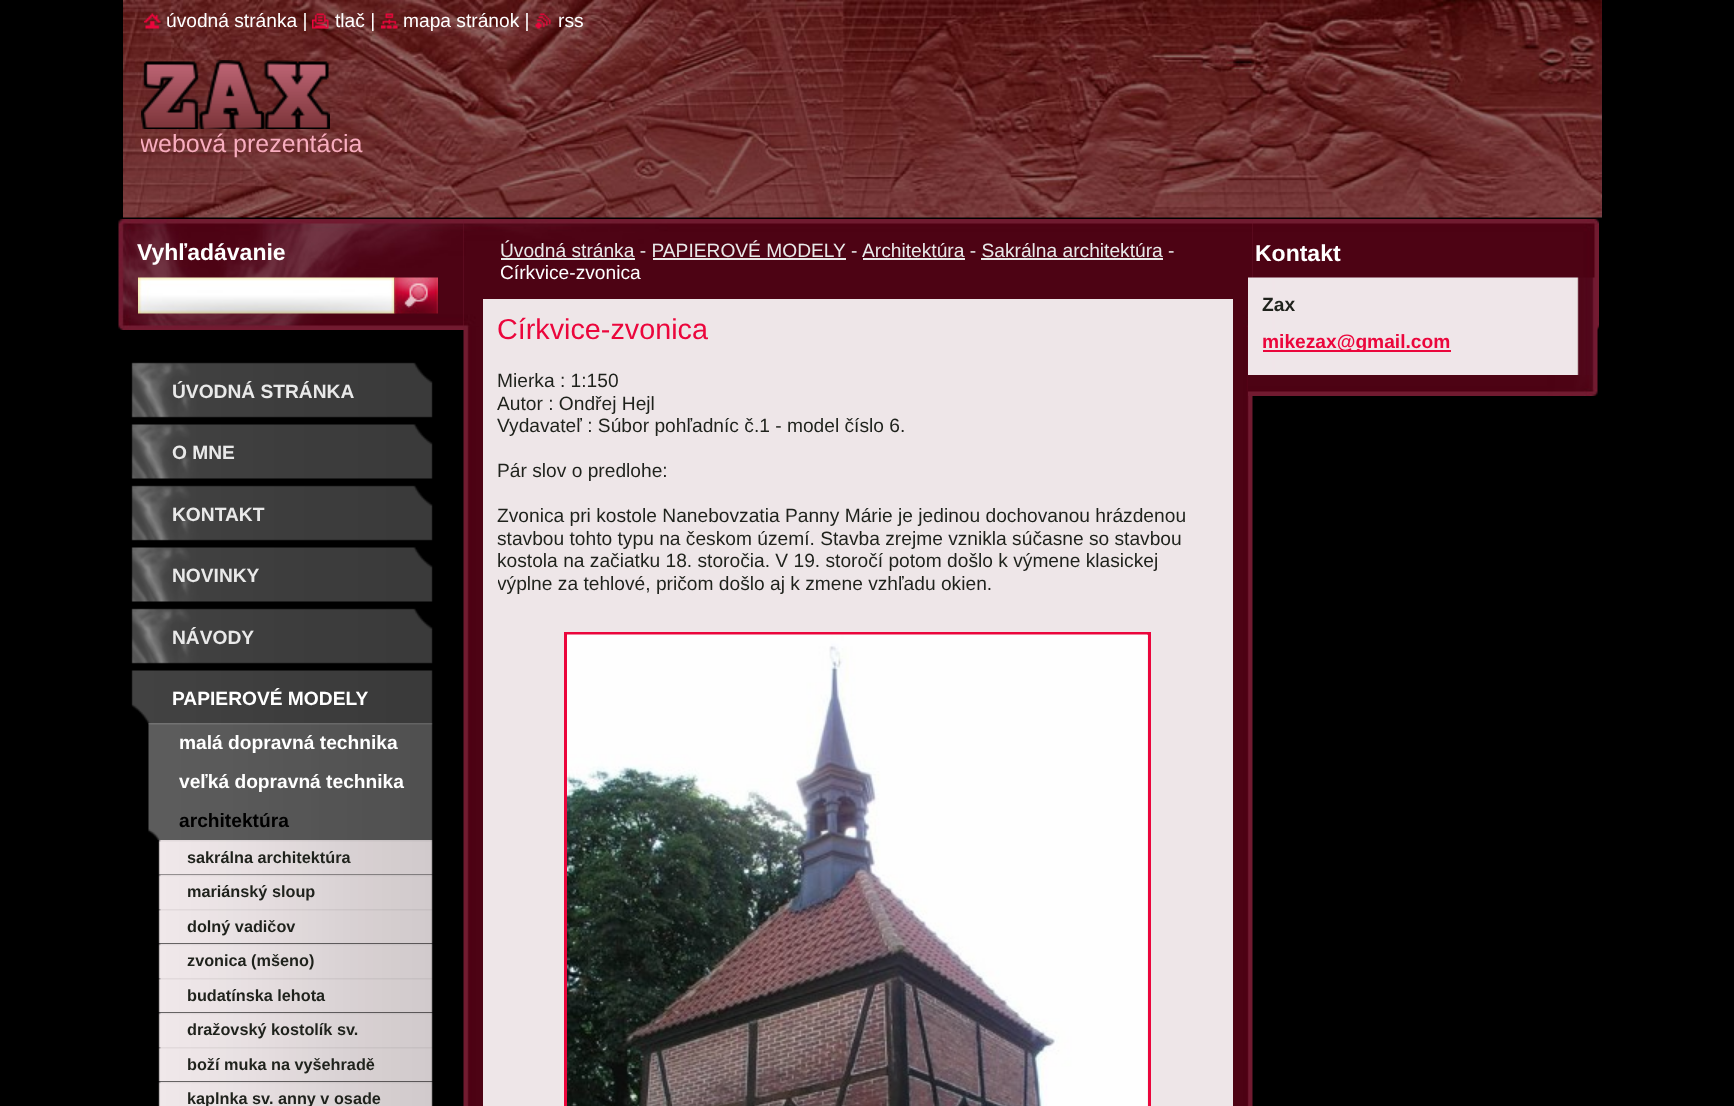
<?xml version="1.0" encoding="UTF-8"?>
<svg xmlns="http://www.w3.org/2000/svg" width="1734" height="1106">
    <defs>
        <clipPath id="clip1"><rect x="141" y="129" width="900" height="30"/></clipPath>
        <clipPath id="clip2"><rect x="498" y="314" width="720" height="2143"/></clipPath>
    </defs>
    <rect width="100%" height="100%" fill="#000000"/>
    <image x="123" y="0" width="1479" height="218" href="img_05.png"/>
    <image x="144" y="13" width="17" height="16" href="img_01.png"/>
    <text x="166" y="27" font-family="Liberation Sans" font-size="19.2" fill="#FFFFFF">úvodná stránka |</text>
    <image x="312" y="13" width="17" height="16" href="img_02.png"/>
    <text x="335" y="27" font-family="Liberation Sans" font-size="19.2" fill="#FFFFFF">tlač |</text>
    <image x="381" y="13" width="17" height="16" href="img_03.png"/>
    <text x="403" y="27" font-family="Liberation Sans" font-size="19.2" fill="#FFFFFF">mapa stránok |</text>
    <image x="535" y="13" width="16" height="16" href="img_04.png"/>
    <text x="558" y="27" font-family="Liberation Sans" font-size="19.2" fill="#FFFFFF">rss</text>
    <image x="141" y="60" width="189" height="69" href="img_06.png"/>
    <g clip-path="url(#clip1)">
        <text x="140" y="152" font-family="Liberation Sans" font-size="25" fill="#F8ADBF">webová prezentácia</text>
    </g>
    <image x="118" y="219" width="1481" height="111" href="img_07.png"/>
    <text x="137" y="260" font-family="Liberation Sans" font-size="23" font-weight="700" fill="#FFFFFF">Vyhľadávanie</text>
    <image x="138" y="277" width="257" height="37" href="img_08.png"/>
    <image x="394" y="277" width="44" height="37" href="img_09.png"/>
    <image x="463" y="219" width="790" height="887" href="img_10.png"/>
    <image x="463" y="219" width="790" height="108" href="img_11.png"/>
    <text x="500" y="257" font-family="Liberation Sans" font-size="19.2" fill="#E9E9E9">Úvodná stránka - PAPIEROVÉ MODELY</text>
    <rect x="501" y="258" width="134" height="2" fill="#E9E9E9"/>
    <text x="851" y="257" font-family="Liberation Sans" font-size="19.2" fill="#E9E9E9">-</text>
    <text x="862" y="257" font-family="Liberation Sans" font-size="19.2" fill="#E9E9E9">Architektúra - Sakrálna architektúra -</text>
    <rect x="863" y="258" width="102" height="2" fill="#E9E9E9"/>
    <rect x="653" y="258" width="193" height="2" fill="#E9E9E9"/>
    <rect x="981" y="258" width="182" height="2" fill="#E9E9E9"/>
    <text x="500" y="279" font-family="Liberation Sans" font-size="19.2" fill="#FFFFFF">Církvice-zvonica</text>
    <rect x="483" y="299" width="750" height="807" fill="#EEE6E8"/>
    <text x="497" y="339" font-family="Liberation Sans" font-size="28.75" fill="#EB063C">Církvice-zvonica</text>
    <text font-family="Liberation Sans" font-size="19.2" fill="#1F221C">
        <tspan x="497" y="387">Mierka : 1:150</tspan>
        <tspan x="497" y="410">Autor : Ondřej Hejl</tspan>
        <tspan x="497" y="432">Vydavateľ : Súbor pohľadníc č.1 - model číslo 6.</tspan>
    </text>
    <text x="497" y="477" font-family="Liberation Sans" font-size="19.2" fill="#1F221C">Pár slov o predlohe:</text>
    <text font-family="Liberation Sans" font-size="19.2" fill="#1F221C">
        <tspan x="497" y="522">Zvonica pri kostole Nanebovzatia Panny Márie je jedinou dochovanou hrázdenou</tspan>
        <tspan x="497" y="545">stavbou tohto typu na českom území. Stavba zrejme vznikla súčasne so stavbou</tspan>
        <tspan x="497" y="567">kostola na začiatku 18. storočia. V 19. storočí potom došlo k výmene klasickej</tspan>
    </text>
    <g clip-path="url(#clip2)">
        <text x="497" y="590" font-family="Liberation Sans" font-size="19.2" fill="#1F221C">výplne za tehlové, pričom došlo aj k zmene vzhľadu okien.</text>
    </g>
    <rect x="1147" y="635" width="1" height="471" fill="#EAEAEA"/>
    <rect x="565.5" y="633.5" width="584" height="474" fill="none" stroke="#EB063C" stroke-width="3"/>
    <image x="567" y="634" width="581" height="472" href="img_12.png"/>
    <text x="1255" y="261" font-family="Liberation Sans" font-size="23" font-weight="700" fill="#FFFFFF">Kontakt</text>
    <image x="1248" y="277" width="350" height="98" href="img_13.png"/>
    <text x="1262" y="311" font-family="Liberation Sans" font-size="19.2" font-weight="700" fill="#1F221C">Zax</text>
    <rect x="1263" y="350" width="188" height="2" fill="#EB063C"/>
    <text x="1262" y="348" font-family="Liberation Sans" font-size="19.2" font-weight="700" fill="#EB063C">mikezax@gmail.com</text>
    <image x="1248" y="375" width="350" height="21" href="img_14.png"/>
    <image x="131" y="362" width="302" height="56" href="img_15.png"/>
    <text x="172" y="398" font-family="Liberation Sans" font-size="19.2" font-weight="700" fill="#E9E9E9">ÚVODNÁ STRÁNKA</text>
    <image x="131" y="424" width="302" height="55" href="img_16.png"/>
    <text x="172" y="459" font-family="Liberation Sans" font-size="19.2" font-weight="700" fill="#E9E9E9">O MNE</text>
    <image x="131" y="485" width="302" height="56" href="img_15.png"/>
    <text x="172" y="521" font-family="Liberation Sans" font-size="19.2" font-weight="700" fill="#E9E9E9">KONTAKT</text>
    <image x="131" y="547" width="302" height="55" href="img_16.png"/>
    <text x="172" y="582" font-family="Liberation Sans" font-size="19.2" font-weight="700" fill="#E9E9E9">NOVINKY</text>
    <image x="131" y="608" width="302" height="56" href="img_15.png"/>
    <text x="172" y="644" font-family="Liberation Sans" font-size="19.2" font-weight="700" fill="#E9E9E9">NÁVODY</text>
    <image x="131" y="670" width="302" height="55" href="img_17.png"/>
    <text x="172" y="705" font-family="Liberation Sans" font-size="19.2" font-weight="700" fill="#FFFFFF">PAPIEROVÉ MODELY</text>
    <image x="148" y="723" width="285" height="39" href="img_18.png"/>
    <text x="179" y="749" font-family="Liberation Sans" font-size="19.2" font-weight="700" fill="#FFFFFF">malá dopravná technika</text>
    <image x="148" y="762" width="285" height="39" href="img_19.png"/>
    <text x="179" y="788" font-family="Liberation Sans" font-size="19.2" font-weight="700" fill="#FFFFFF">veľká dopravná technika</text>
    <image x="148" y="801" width="285" height="39" href="img_20.png"/>
    <text x="179" y="827" font-family="Liberation Sans" font-size="19.2" font-weight="700" fill="#000000">architektúra</text>
    <image x="158" y="840" width="275" height="35" href="img_21.png"/>
    <text x="187" y="863" font-family="Liberation Sans" font-size="16.25" font-weight="700" fill="#1F221C">sakrálna architektúra</text>
    <image x="158" y="874" width="275" height="35" href="img_22.png"/>
    <text x="187" y="897" font-family="Liberation Sans" font-size="16.25" font-weight="700" fill="#1F221C">mariánský sloup</text>
    <image x="158" y="909" width="275" height="35" href="img_23.png"/>
    <text x="187" y="932" font-family="Liberation Sans" font-size="16.25" font-weight="700" fill="#1F221C">dolný vadičov</text>
    <image x="158" y="943" width="275" height="35" href="img_24.png"/>
    <text x="187" y="966" font-family="Liberation Sans" font-size="16.25" font-weight="700" fill="#1F221C">zvonica (mšeno)</text>
    <image x="158" y="978" width="275" height="35" href="img_23.png"/>
    <text x="187" y="1001" font-family="Liberation Sans" font-size="16.25" font-weight="700" fill="#1F221C">budatínska lehota</text>
    <image x="158" y="1012" width="275" height="35" href="img_24.png"/>
    <text x="187" y="1035" font-family="Liberation Sans" font-size="16.25" font-weight="700" fill="#1F221C">dražovský kostolík sv.</text>
    <image x="158" y="1047" width="275" height="35" href="img_23.png"/>
    <text x="187" y="1070" font-family="Liberation Sans" font-size="16.25" font-weight="700" fill="#1F221C">boží muka na vyšehradě</text>
    <image x="158" y="1081" width="275" height="25" href="img_25.png"/>
    <text x="187" y="1104" font-family="Liberation Sans" font-size="16.25" font-weight="700" fill="#1F221C">kaplnka sv. anny v osade</text>
</svg>
